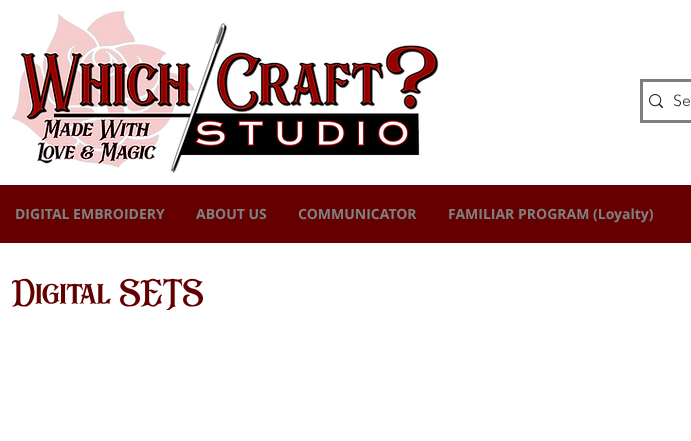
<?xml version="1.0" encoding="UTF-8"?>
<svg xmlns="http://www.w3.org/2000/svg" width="691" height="441">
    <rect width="100%" height="100%" fill="#FFFFFF"/>
    <image x="11" y="10" width="428" height="163" href="img_01.png"/>
    <rect x="641.5" y="80.5" width="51" height="41" fill="none" stroke="#7F7F7F" stroke-width="3"/>
    <image x="649" y="94" width="14" height="14" href="img_02.png"/>
    <text x="673" y="106" font-family="'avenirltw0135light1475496'" font-size="16" font-weight="300" fill="#2A2A2A">Se</text>
    <rect x="0" y="185" width="691" height="58" fill="#640000"/>
    <text x="15" y="219" font-family="Open Sans" font-size="14" font-weight="700" fill="#808080">DIGITAL EMBROIDERY</text>
    <text x="196" y="219" font-family="Open Sans" font-size="14" font-weight="700" fill="#808080">ABOUT US</text>
    <text x="298" y="219" font-family="Open Sans" font-size="14" font-weight="700" fill="#808080">COMMUNICATOR</text>
    <text x="448" y="219" font-family="Open Sans" font-size="14" font-weight="700" fill="#808080">FAMILIAR PROGRAM (Loyalty)</text>
    <text x="12" y="301" font-family="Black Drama" font-size="35" font-weight="900" fill="#640000">Digital SETS</text>
</svg>
